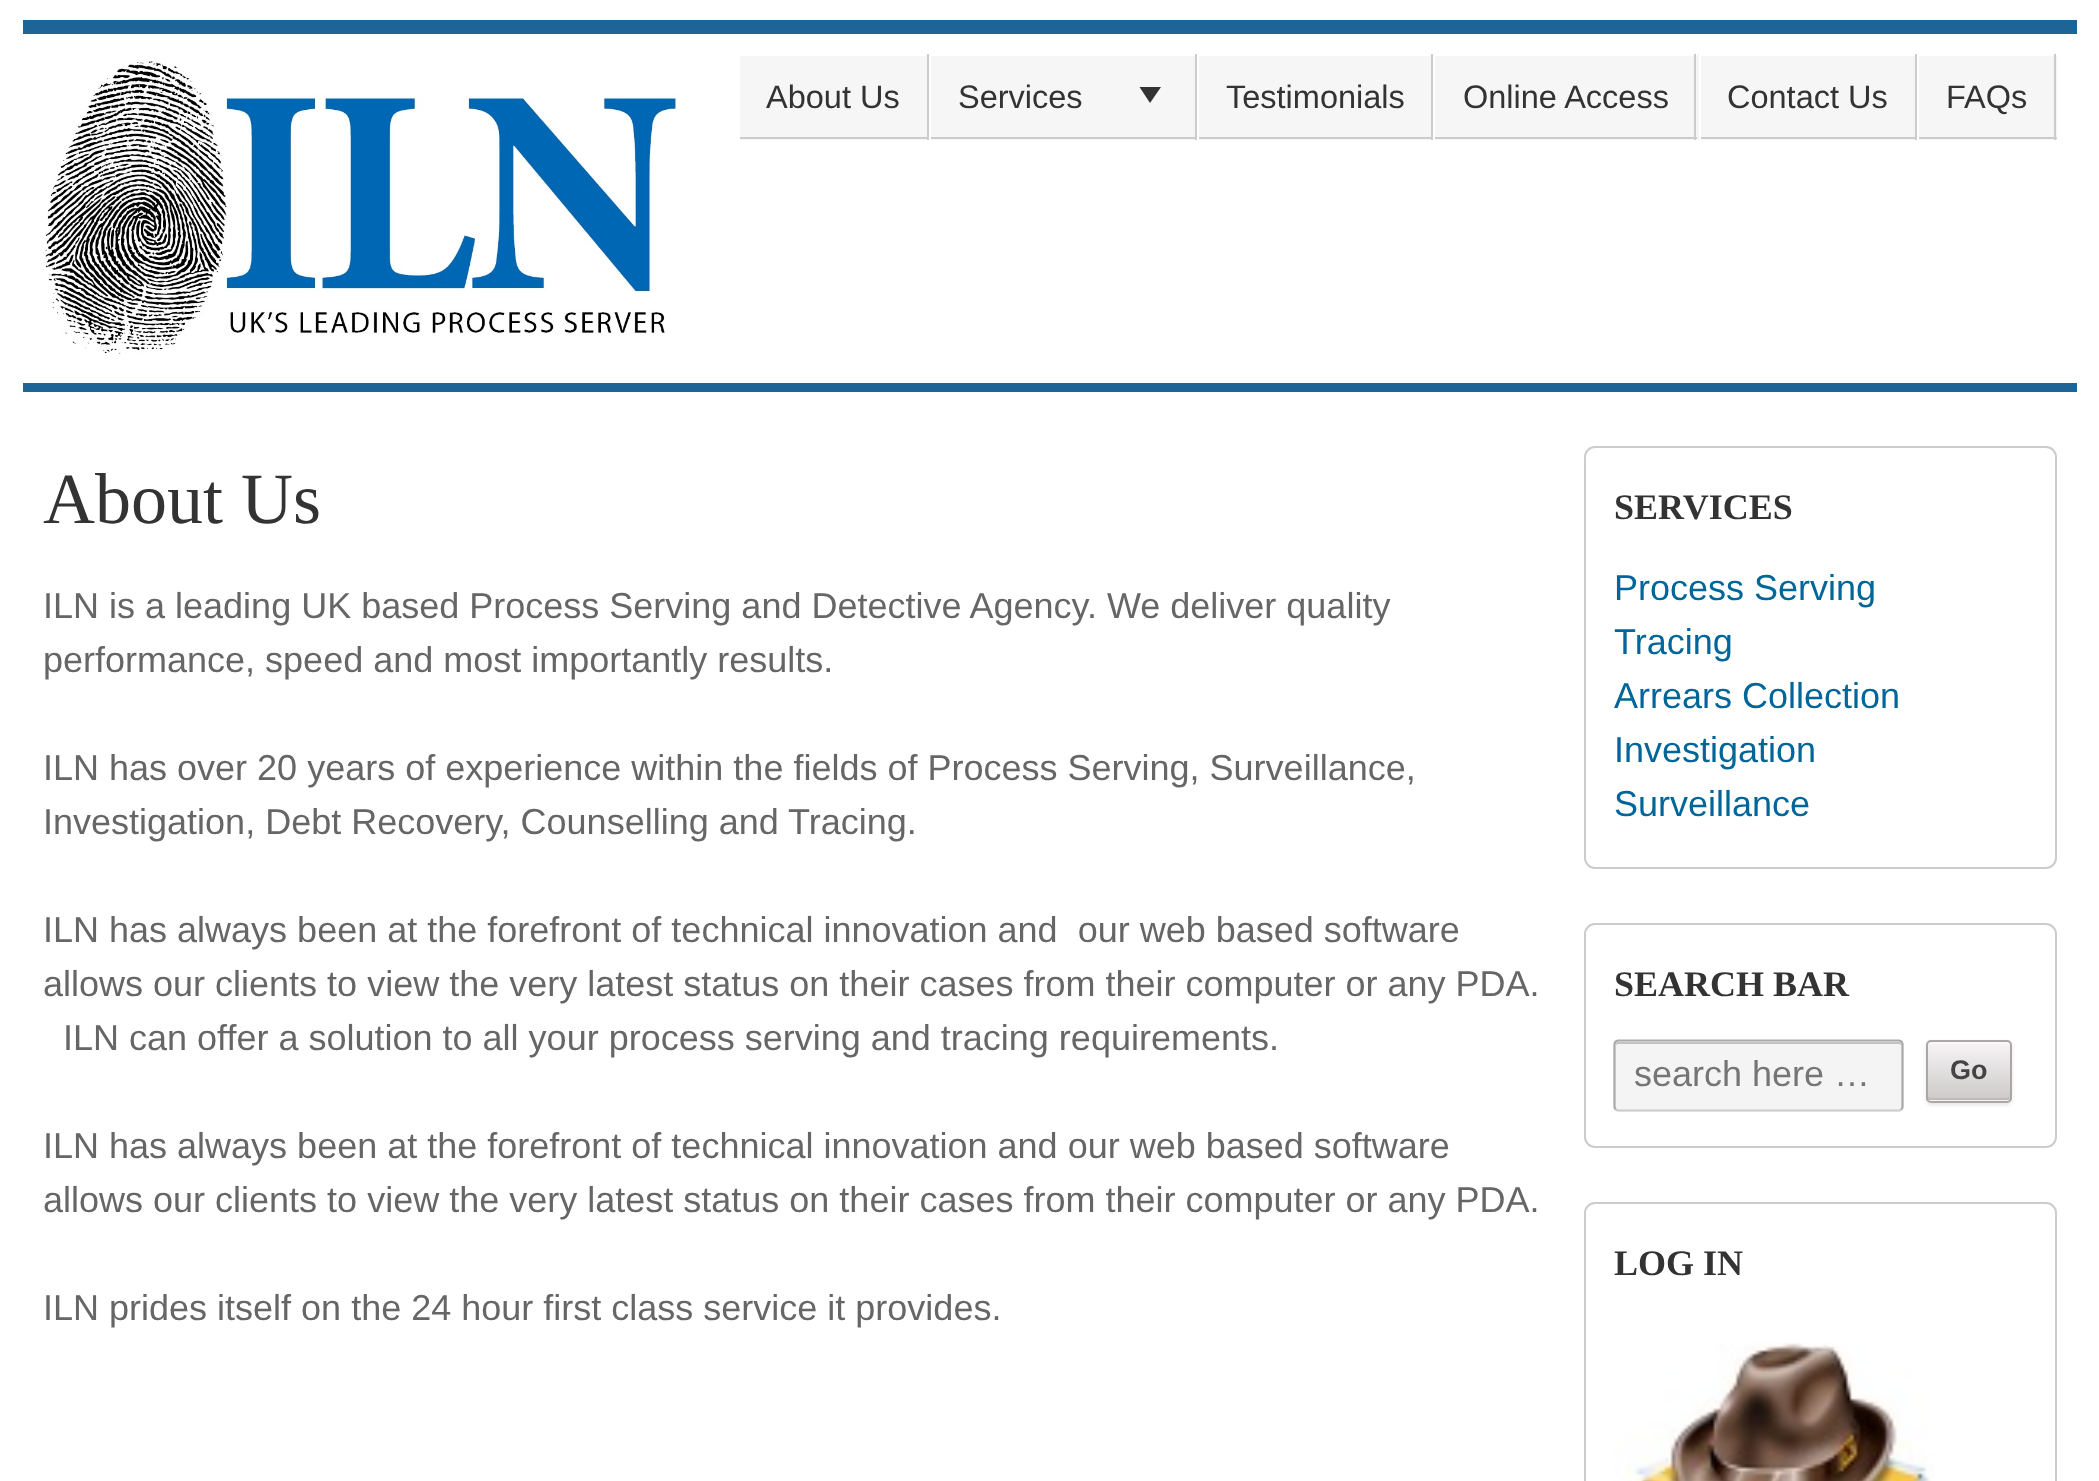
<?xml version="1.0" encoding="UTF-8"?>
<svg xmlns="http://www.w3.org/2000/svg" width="2099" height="1481">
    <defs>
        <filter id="blur1" x="-50%" y="-200%" width="200%" height="500%"><feGaussianBlur stdDeviation="2"/></filter>
        <clipPath id="clip1"><rect x="1926" y="1040" width="86" height="63" rx="5"/></clipPath>
        <linearGradient id="g1" gradientUnits="userSpaceOnUse" x1="1969" y1="1042" x2="1969" y2="1100"><stop offset="0" stop-color="#F6F5F5"/><stop offset="1" stop-color="#CDC9C9"/></linearGradient>
        <linearGradient id="g2" gradientUnits="userSpaceOnUse" x1="1969" y1="1100" x2="1969" y2="1159"><stop offset="0" stop-color="#F6F5F5"/><stop offset="1" stop-color="#CDC9C9"/></linearGradient>
    </defs>
    <rect width="100%" height="100%" fill="#FFFFFF"/>
    <rect x="23" y="20" width="2054" height="14" fill="#1D6497"/>
    <rect x="23" y="383" width="2054" height="9" fill="#1D6497"/>
    <image x="45" y="61" width="634" height="293" href="img_01.png"/>
    <rect x="740" y="54" width="1317" height="86" fill="#F6F6F6"/>
    <rect x="738" y="54" width="959" height="2" fill="#FFFFFF"/>
    <rect x="927" y="54" width="2" height="86" fill="#CCCCCC"/>
    <rect x="738" y="137" width="191" height="2" fill="#CCCCCC"/>
    <rect x="738" y="137" width="2" height="3" fill="#FFFFFF"/>
    <text x="766" y="108" font-family="Liberation Sans" font-size="32.5" fill="#333333">About Us</text>
    <rect x="1195" y="54" width="2" height="86" fill="#CCCCCC"/>
    <rect x="929" y="137" width="268" height="2" fill="#CCCCCC"/>
    <rect x="929" y="54" width="2" height="86" fill="#FFFFFF"/>
    <text x="958" y="108" font-family="Liberation Sans" font-size="32.5" fill="#333333">Services</text>
    <path d="M 1161 87 L 1150 103 L 1139.5 87 Z" fill="#333333"/>
    <rect x="1431" y="54" width="2" height="86" fill="#CCCCCC"/>
    <rect x="1197" y="137" width="236" height="2" fill="#CCCCCC"/>
    <rect x="1197" y="54" width="2" height="86" fill="#FFFFFF"/>
    <text x="1226" y="108" font-family="Liberation Sans" font-size="32.5" fill="#333333">Testimonials</text>
    <rect x="1694" y="54" width="2" height="86" fill="#CCCCCC"/>
    <rect x="1433" y="137" width="264" height="2" fill="#CCCCCC"/>
    <rect x="1433" y="54" width="2" height="86" fill="#FFFFFF"/>
    <text x="1463" y="108" font-family="Liberation Sans" font-size="32.5" fill="#333333">Online Access</text>
    <rect x="1699" y="54" width="358" height="2" fill="#FFFFFF"/>
    <rect x="1915" y="54" width="2" height="86" fill="#CCCCCC"/>
    <rect x="1699" y="137" width="218" height="2" fill="#CCCCCC"/>
    <rect x="1699" y="54" width="2" height="86" fill="#FFFFFF"/>
    <text x="1727" y="108" font-family="Liberation Sans" font-size="32.5" fill="#333333">Contact Us</text>
    <rect x="2054" y="54" width="2" height="86" fill="#CCCCCC"/>
    <rect x="1917" y="137" width="140" height="2" fill="#CCCCCC"/>
    <rect x="1917" y="54" width="2" height="86" fill="#FFFFFF"/>
    <text x="1946" y="108" font-family="Liberation Sans" font-size="32.5" fill="#333333">FAQs</text>
    <text x="43" y="523" font-family="Liberation Serif" font-size="72" fill="#333333">About Us</text>
    <text font-family="Liberation Sans" font-size="36" fill="#666666">
        <tspan x="43" y="618">ILN is a leading UK based Process Serving and Detective Agency. We deliver quality</tspan>
        <tspan x="43" y="672">performance, speed and most importantly results.</tspan>
    </text>
    <text font-family="Liberation Sans" font-size="36" fill="#666666">
        <tspan x="43" y="780">ILN has over 20 years of experience within the fields of Process Serving, Surveillance,</tspan>
        <tspan x="43" y="834">Investigation, Debt Recovery, Counselling and Tracing.</tspan>
    </text>
    <text font-family="Liberation Sans" font-size="36" fill="#666666" xml:space="preserve"><tspan x="43" y="942">ILN has always been at the forefront of technical innovation and  our web based software</tspan><tspan x="43" y="996">allows our clients to view the very latest status on their cases from their computer or any PDA.</tspan></text>
    <text x="63" y="1050" font-family="Liberation Sans" font-size="36" fill="#666666">ILN can offer a solution to all your process serving and tracing requirements.</text>
    <text font-family="Liberation Sans" font-size="36" fill="#666666">
        <tspan x="43" y="1158">ILN has always been at the forefront of technical innovation and our web based software</tspan>
        <tspan x="43" y="1212">allows our clients to view the very latest status on their cases from their computer or any PDA.</tspan>
    </text>
    <text x="43" y="1320" font-family="Liberation Sans" font-size="36" fill="#666666">ILN prides itself on the 24 hour first class service it provides.</text>
    <rect x="1585" y="447" width="471" height="421" rx="10" fill="none" stroke="#CCCCCC" stroke-width="2"/>
    <text x="1614" y="519" font-family="Liberation Serif" font-size="36" font-weight="700" fill="#333333">SERVICES</text>
    <text font-family="Liberation Sans" font-size="36" fill="#006699">
        <tspan x="1614" y="600">Process Serving</tspan>
        <tspan x="1614" y="654">Tracing</tspan>
        <tspan x="1614" y="708">Arrears Collection</tspan>
        <tspan x="1614" y="762">Investigation</tspan>
        <tspan x="1614" y="816">Surveillance</tspan>
    </text>
    <rect x="1585" y="924" width="471" height="223" rx="10" fill="none" stroke="#CCCCCC" stroke-width="2"/>
    <text x="1614" y="996" font-family="Liberation Serif" font-size="36" font-weight="700" fill="#333333">SEARCH BAR</text>
    <rect x="1613" y="1040" width="291" height="72" rx="5" fill="#F4F4F4"/>
    <path d="M 1618 1044 H 1899 C 1900 1044 1901 1045 1901 1046 C 1901 1044 1901 1042 1899 1042 H 1617 C 1616 1043 1616 1045 1616 1046 C 1616 1045 1617 1044 1618 1044 Z" fill="#C3C3C3"/>
    <path d="M 1901.5 1109.5 L 1899 1110.5 H 1618 L 1615.5 1109.5" fill="none" stroke="#CCCCCC" stroke-width="2.2"/>
    <path d="M 1615.5 1109.5 L 1614.5 1107 V 1044 L 1615.5 1041.5 L 1618 1040.5 H 1899 L 1901.5 1041.5 L 1902.5 1044 V 1107 L 1901.5 1109.5" fill="none" stroke="#AAAAAA" stroke-width="2.2"/>
    <text x="1634" y="1086" font-family="Liberation Sans" font-size="36" fill="#757575">search here …</text>
    <rect x="1926" y="1042" width="86" height="63" rx="5" fill="#000000" fill-opacity="0.1" filter="url(#blur1)"/>
    <g clip-path="url(#clip1)">
        <rect x="1926" y="1042" width="86" height="58" fill="url(#g1)"/>
        <rect x="1926" y="1100" width="86" height="3" fill="url(#g2)"/>
    </g>
    <path d="M 1930 1044 H 2007 C 2008 1044 2009 1045 2009 1046 V 1044 C 2009 1043 2008 1042 2007 1042 H 1930 C 1929 1042 1928 1043 1928 1044 V 1046 C 1928 1045 1929 1044 1930 1044 Z" fill="#F8F8F8"/>
    <path d="M 1928 1096 V 1098 C 1928 1099 1929 1100 1930 1100 H 2007 C 2008 1100 2009 1099 2009 1098 V 1096 C 2009 1097 2008 1098 2007 1098 H 1930 C 1929 1098 1928 1097 1928 1096 Z" fill="#BEBABA"/>
    <rect x="1927" y="1041" width="84" height="61" rx="4" fill="none" stroke="#ACA6A6" stroke-width="2"/>
    <text x="1950" y="1079" font-family="Liberation Sans" font-size="27" font-weight="700" fill="#444444">Go</text>
    <rect x="1585" y="1203" width="471" height="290" rx="10" fill="none" stroke="#CCCCCC" stroke-width="2"/>
    <text x="1614" y="1275" font-family="Liberation Serif" font-size="36" font-weight="700" fill="#333333">LOG IN</text>
    <image x="1614" y="1342" width="320" height="139" href="img_02.png"/>
</svg>
